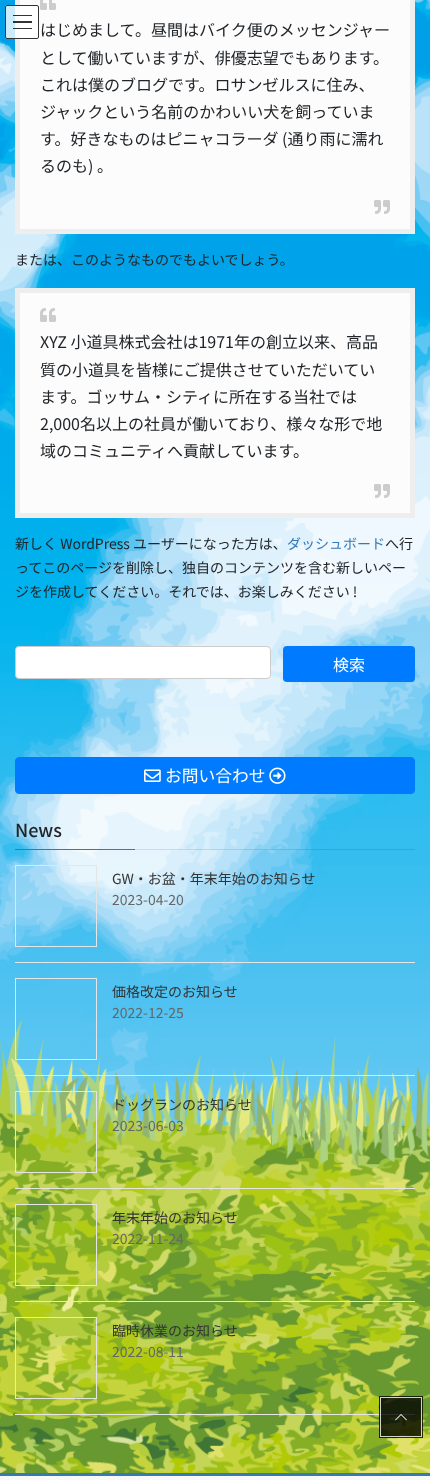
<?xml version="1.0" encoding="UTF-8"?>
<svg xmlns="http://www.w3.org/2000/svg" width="430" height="1480">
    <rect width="100%" height="100%" fill="#FFFFFF"/>
    <image x="0" y="0" width="430" height="1473" href="img_01.png"/>
    <rect x="17.5" y="-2.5" width="395" height="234" fill="#FCFCFC" stroke="#EEEEEE" stroke-width="5"/>
    <rect x="5" y="5" width="34" height="34" rx="2" fill="#FFFFFF" fill-opacity="0.8"/>
    <rect x="13" y="15" width="19" height="1" fill="#000000" fill-opacity="0.8"/>
    <rect x="13" y="21" width="19" height="2" fill="#000000" fill-opacity="0.8"/>
    <rect x="13" y="28" width="19" height="1" fill="#000000" fill-opacity="0.8"/>
    <rect x="5.5" y="5.5" width="33" height="33" rx="1.5" fill="none" stroke="#333333"/>
    <image x="40" y="0" width="16" height="10" href="img_02.png"/>
    <text font-family="Noto Sans JP" font-size="16" fill="#212529">
        <tspan x="40" y="36">はじめまして。昼間はバイク便のメッセンジャー</tspan>
        <tspan x="40" y="64">として働いていますが、俳優志望でもあります。</tspan>
        <tspan x="40" y="91">これは僕のブログです。ロサンゼルスに住み、</tspan>
        <tspan x="40" y="118">ジャックという名前のかわいい犬を飼っていま</tspan>
        <tspan x="40" y="145">す。好きなものはピニャコラーダ (通り雨に濡れ</tspan>
        <tspan x="40" y="172">るのも) 。</tspan>
    </text>
    <image x="374" y="200" width="16" height="14" href="img_03.png"/>
    <text x="15" y="265" font-family="Noto Sans JP" font-size="14" fill="#212529">または、このようなものでもよいでしょう。</text>
    <rect x="17.5" y="290.5" width="395" height="225" fill="#FCFCFC" stroke="#EEEEEE" stroke-width="5"/>
    <image x="40" y="308" width="16" height="14" href="img_04.png"/>
    <text font-family="Noto Sans JP" font-size="16" fill="#212529">
        <tspan x="40" y="348">XYZ 小道具株式会社は1971年の創立以来、高品</tspan>
        <tspan x="40" y="376">質の小道具を皆様にご提供させていただいてい</tspan>
        <tspan x="40" y="403">ます。ゴッサム・シティに所在する当社では</tspan>
        <tspan x="40" y="430">2,000名以上の社員が働いており、様々な形で地</tspan>
        <tspan x="40" y="457">域のコミュニティへ貢献しています。</tspan>
    </text>
    <image x="374" y="484" width="16" height="14" href="img_03.png"/>
    <text x="15" y="549" font-family="Noto Sans JP" font-size="14" fill="#212529">新しく WordPress ユーザーになった方は、</text>
    <text x="287" y="549" font-family="Noto Sans JP" font-size="14" fill="#337AB7">ダッシュボード</text>
    <text x="385" y="549" font-family="Noto Sans JP" font-size="14" fill="#212529">へ行</text>
    <text font-family="Noto Sans JP" font-size="14" fill="#212529">
        <tspan x="15" y="573">ってこのページを削除し、独自のコンテンツを含む新しいペー</tspan>
        <tspan x="15" y="597">ジを作成してください。それでは、お楽しみください !</tspan>
    </text>
    <rect x="15.5" y="646.5" width="255" height="32" rx="3.5" fill="#FFFFFF" stroke="#CCCCCC"/>
    <rect x="283" y="646" width="132" height="36" rx="4" fill="#007BFF"/>
    <text x="333" y="671" font-family="Noto Sans JP" font-size="16" fill="#FFFFFF">検索</text>
    <rect x="15.5" y="757.5" width="399" height="36" rx="3.5" fill="#007BFF" stroke="#007BFF"/>
    <image x="144" y="769" width="17" height="13" href="img_05.png"/>
    <text x="165" y="782" font-family="Noto Sans JP" font-size="16.75" fill="#FFFFFF">お問い合わせ</text>
    <image x="269" y="767" width="17" height="17" href="img_06.png"/>
    <rect x="135" y="849" width="280" height="1" fill="#000000" fill-opacity="0.1"/>
    <text x="15" y="837" font-family="Noto Sans JP" font-size="18" font-weight="500" fill="#212529">News</text>
    <rect x="15" y="849" width="120" height="1" fill="#337AB7"/>
    <rect x="15" y="962" width="400" height="1" fill="#E5E5E5"/>
    <rect x="15.5" y="865.5" width="81" height="81" fill="none" stroke="#E5E5E5"/>
    <text x="112" y="884" font-family="Noto Sans JP" font-size="14" fill="#333333">GW・お盆・年末年始のお知らせ</text>
    <text x="112" y="905" font-family="Noto Sans JP" font-size="14" fill="#666666">2023-04-20</text>
    <rect x="15" y="1075" width="400" height="1" fill="#E5E5E5"/>
    <rect x="15.5" y="978.5" width="81" height="81" fill="none" stroke="#E5E5E5"/>
    <text x="112" y="997" font-family="Noto Sans JP" font-size="14" fill="#333333">価格改定のお知らせ</text>
    <text x="112" y="1018" font-family="Noto Sans JP" font-size="14" fill="#666666">2022-12-25</text>
    <rect x="15" y="1188" width="400" height="1" fill="#E5E5E5"/>
    <rect x="15.5" y="1091.5" width="81" height="81" fill="none" stroke="#E5E5E5"/>
    <text x="112" y="1110" font-family="Noto Sans JP" font-size="14" fill="#333333">ドッグランのお知らせ</text>
    <text x="112" y="1131" font-family="Noto Sans JP" font-size="14" fill="#666666">2023-06-03</text>
    <rect x="15" y="1301" width="400" height="1" fill="#E5E5E5"/>
    <rect x="15.5" y="1204.5" width="81" height="81" fill="none" stroke="#E5E5E5"/>
    <text x="112" y="1223" font-family="Noto Sans JP" font-size="14" fill="#333333">年末年始のお知らせ</text>
    <text x="112" y="1244" font-family="Noto Sans JP" font-size="14" fill="#666666">2022-11-24</text>
    <rect x="15" y="1414" width="400" height="1" fill="#E5E5E5"/>
    <rect x="15.5" y="1317.5" width="81" height="81" fill="none" stroke="#E5E5E5"/>
    <text x="112" y="1336" font-family="Noto Sans JP" font-size="14" fill="#333333">臨時休業のお知らせ</text>
    <text x="112" y="1357" font-family="Noto Sans JP" font-size="14" fill="#666666">2022-08-11</text>
    <rect x="380" y="1397" width="42" height="40" fill="none" stroke="#000000" stroke-opacity="0.8" stroke-width="2"/>
    <rect x="380.5" y="1397.5" width="41" height="39" fill="none" stroke="#FFFFFF" stroke-opacity="0.8"/>
    <rect x="381" y="1398" width="40" height="38" fill="#000000" fill-opacity="0.8"/>
    <image x="395" y="1414" width="12" height="7" href="img_07.png"/>
    <rect x="0" y="1476" width="430" height="4" fill="#F9F9F9"/>
    <rect x="0" y="1473" width="430" height="3" fill="#337AB7"/>
</svg>
